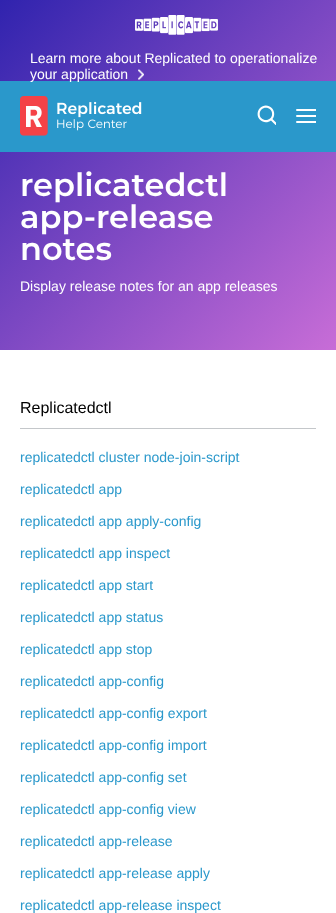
<?xml version="1.0" encoding="UTF-8"?>
<svg xmlns="http://www.w3.org/2000/svg" width="336" height="913">
    <defs>
        <linearGradient id="g1" gradientUnits="userSpaceOnUse" x1="-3.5" y1="3.5" x2="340" y2="347"><stop offset="0" stop-color="#3023AE"/><stop offset="1" stop-color="#C86DD7"/></linearGradient>
    </defs>
    <rect width="100%" height="100%" fill="#FFFFFF"/>
    <rect x="0" y="0" width="336" height="350" fill="url(#g1)"/>
    <image x="135" y="15" width="83" height="20" href="img_01.png"/>
    <text x="30" y="63" font-family="Liberation Sans" font-size="14" fill="#FFFFFF">Learn more about Replicated to operationalize</text>
    <rect x="0" y="81" width="336" height="71" fill="#2A98CB"/>
    <text x="30" y="79" font-family="Liberation Sans" font-size="14" fill="#FFFFFF">your application</text>
    <image x="138" y="69" width="6" height="11" href="img_02.png"/>
    <image x="20" y="96" width="122" height="40" href="img_03.png"/>
    <image x="257" y="105" width="19" height="20" href="img_04.png"/>
    <image x="296" y="109" width="20" height="14" href="img_05.png"/>
    <text font-family="Montserrat" font-size="32" font-weight="600" fill="#FFFFFF">
        <tspan x="20" y="196">replicatedctl</tspan>
        <tspan x="20" y="228">app-release</tspan>
        <tspan x="20" y="260">notes</tspan>
    </text>
    <text x="20" y="291" font-family="Liberation Sans" font-size="14" fill="#FFFFFF">Display release notes for an app releases</text>
    <rect x="20" y="428" width="296" height="1" fill="#C4C7CA"/>
    <text x="20" y="413" font-family="Liberation Sans" font-size="16" fill="#000000">Replicatedctl</text>
    <text x="20" y="462" font-family="Liberation Sans" font-size="14" fill="#2A98CB">replicatedctl cluster node-join-script</text>
    <text x="20" y="494" font-family="Liberation Sans" font-size="14" fill="#2A98CB">replicatedctl app</text>
    <text x="20" y="526" font-family="Liberation Sans" font-size="14" fill="#2A98CB">replicatedctl app apply-config</text>
    <text x="20" y="558" font-family="Liberation Sans" font-size="14" fill="#2A98CB">replicatedctl app inspect</text>
    <text x="20" y="590" font-family="Liberation Sans" font-size="14" fill="#2A98CB">replicatedctl app start</text>
    <text x="20" y="622" font-family="Liberation Sans" font-size="14" fill="#2A98CB">replicatedctl app status</text>
    <text x="20" y="654" font-family="Liberation Sans" font-size="14" fill="#2A98CB">replicatedctl app stop</text>
    <text x="20" y="686" font-family="Liberation Sans" font-size="14" fill="#2A98CB">replicatedctl app-config</text>
    <text x="20" y="718" font-family="Liberation Sans" font-size="14" fill="#2A98CB">replicatedctl app-config export</text>
    <text x="20" y="750" font-family="Liberation Sans" font-size="14" fill="#2A98CB">replicatedctl app-config import</text>
    <text x="20" y="782" font-family="Liberation Sans" font-size="14" fill="#2A98CB">replicatedctl app-config set</text>
    <text x="20" y="814" font-family="Liberation Sans" font-size="14" fill="#2A98CB">replicatedctl app-config view</text>
    <text x="20" y="846" font-family="Liberation Sans" font-size="14" fill="#2A98CB">replicatedctl app-release</text>
    <text x="20" y="878" font-family="Liberation Sans" font-size="14" fill="#2A98CB">replicatedctl app-release apply</text>
    <text x="20" y="910" font-family="Liberation Sans" font-size="14" fill="#2A98CB">replicatedctl app-release inspect</text>
</svg>
